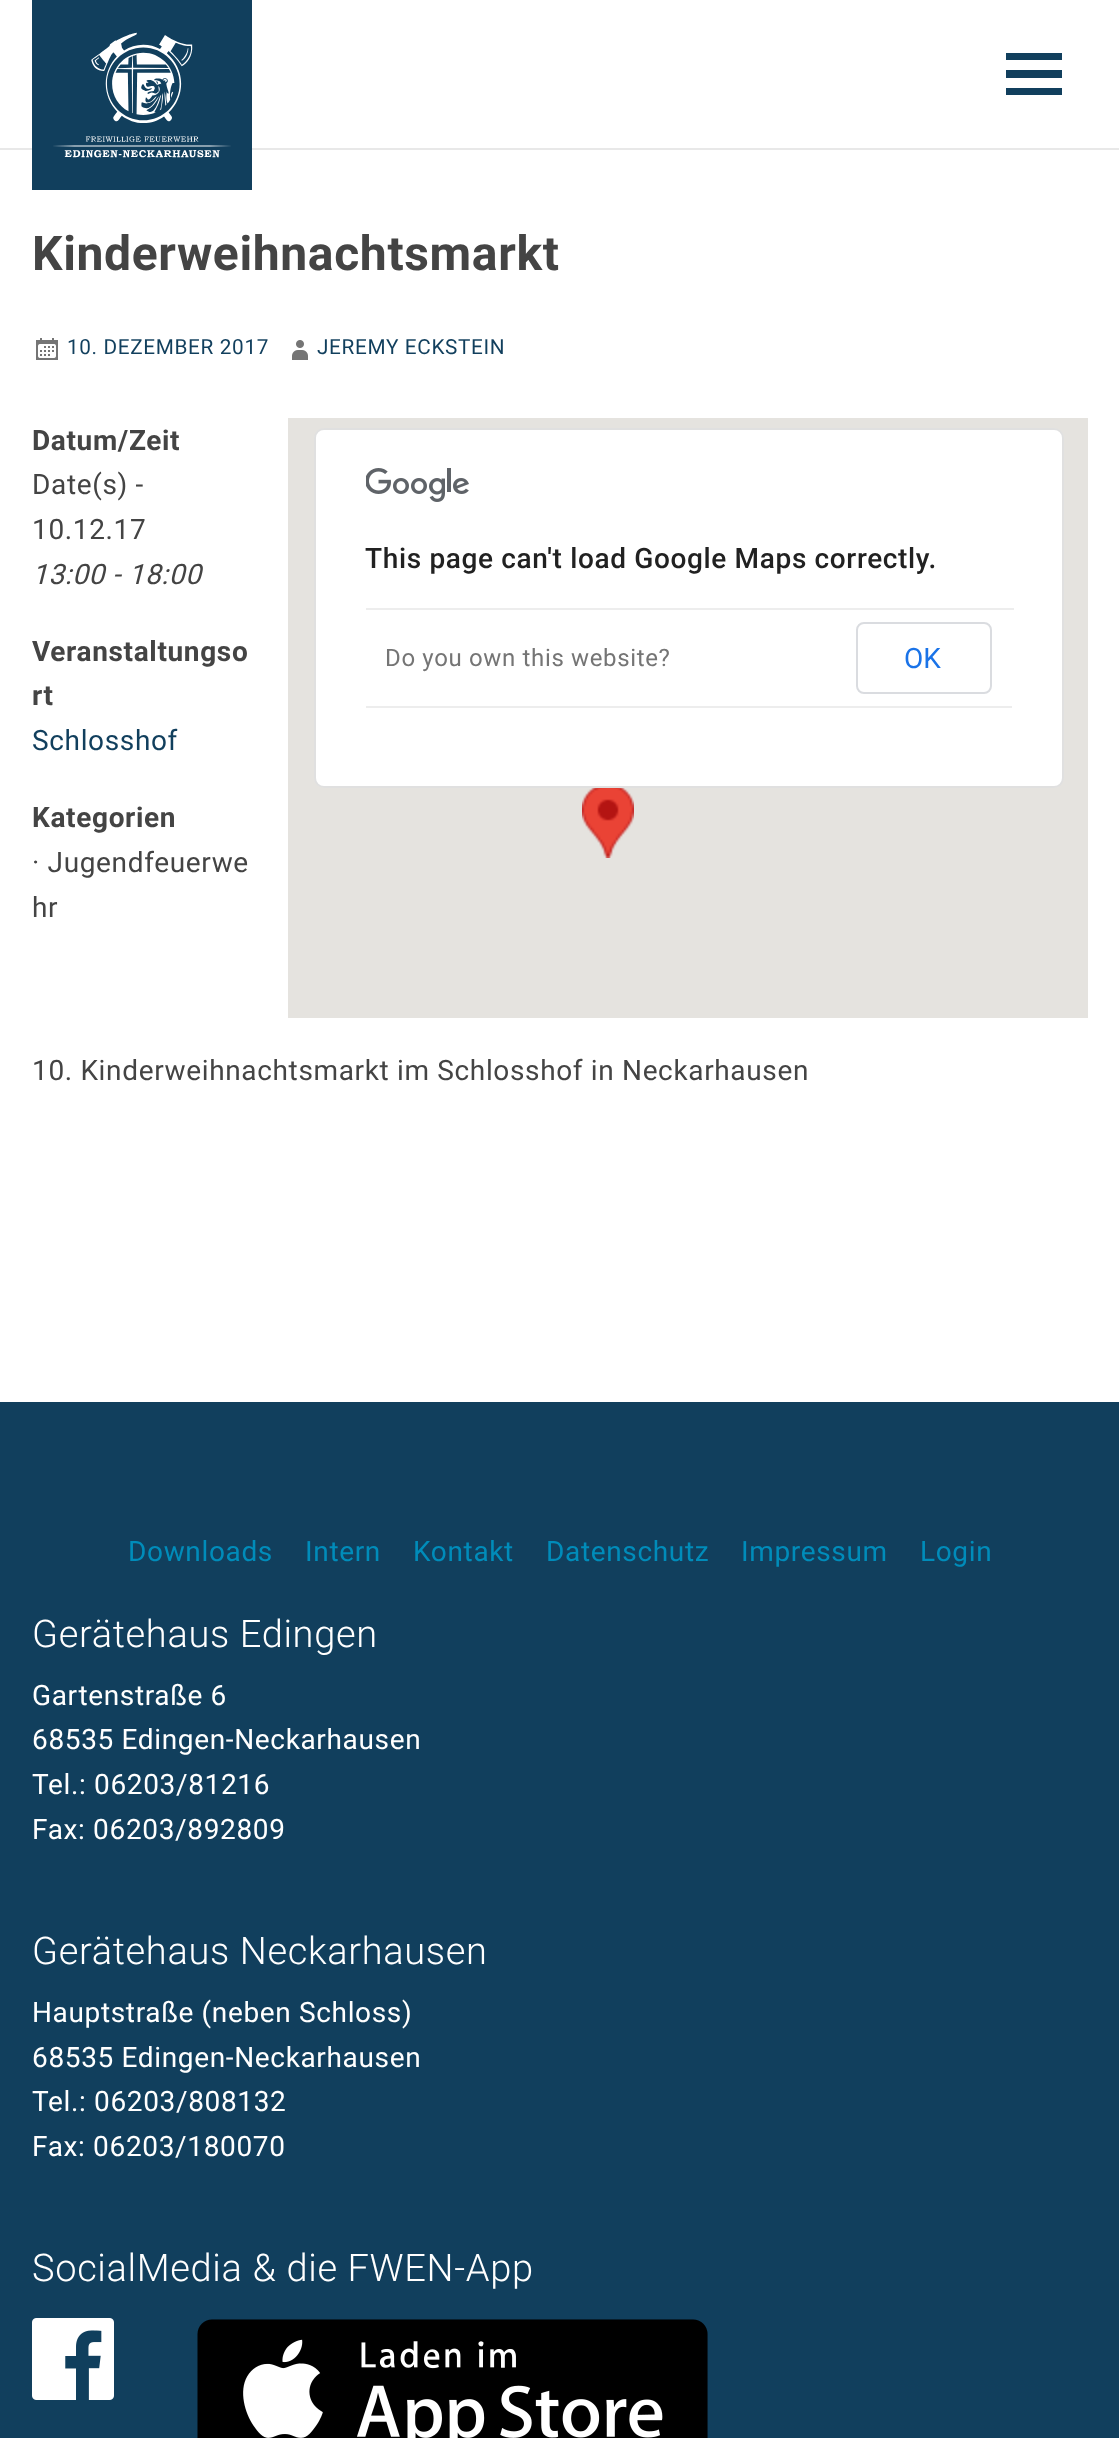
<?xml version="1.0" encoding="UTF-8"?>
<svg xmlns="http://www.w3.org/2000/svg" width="1119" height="2438">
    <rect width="100%" height="100%" fill="#FFFFFF"/>
    <rect x="0" y="148" width="1119" height="2" fill="#E8E8E8"/>
    <rect x="32" y="0" width="220" height="190" fill="#113F5D"/>
    <image x="53" y="32" width="178" height="126" href="img_01.png"/>
    <path d="M 1006 95 V 88 H 1062 V 95 Z M 1006 53 H 1062 V 60 H 1006 Z M 1006 78 V 70 H 1062 V 78 Z" fill="#113F5D"/>
    <text x="32" y="270" font-family="Roboto" font-size="48" font-weight="700" letter-spacing="0.65" fill="#444444">Kinderweihnachtsmarkt</text>
    <image x="36" y="338" width="22" height="22" href="img_02.png"/>
    <text x="67" y="354" font-family="Roboto" font-size="20.75" letter-spacing="0.65" fill="#113F5D">10. DEZEMBER 2017</text>
    <image x="292" y="340" width="16" height="20" href="img_03.png"/>
    <text x="317" y="354" font-family="Roboto" font-size="20.75" letter-spacing="0.65" fill="#113F5D">JEREMY ECKSTEIN</text>
    <text x="32" y="450" font-family="Roboto" font-size="28" font-weight="700" letter-spacing="0.65" fill="#444444">Datum/Zeit</text>
    <text font-family="Roboto" font-size="28" letter-spacing="0.65" fill="#444444">
        <tspan x="32" y="494">Date(s) -</tspan>
        <tspan x="32" y="539">10.12.17</tspan>
    </text>
    <text x="32" y="584" font-family="Roboto" font-size="28" font-style="italic" letter-spacing="0.65" fill="#444444">13:00 - 18:00</text>
    <rect x="288" y="418" width="800" height="600" fill="#E5E3DF"/>
    <image x="582" y="788" width="52" height="70" href="img_04.png"/>
    <rect x="314" y="428" width="750" height="360" rx="10" fill="#FFFFFF"/>
    <rect x="315" y="429" width="748" height="358" rx="9" fill="none" stroke="#000000" stroke-opacity="0.12" stroke-width="2"/>
    <image x="366" y="468" width="103" height="34" href="img_05.png"/>
    <text x="365" y="568" font-family="Roboto" font-size="28" font-weight="500" letter-spacing="0.65" fill="#212121">This page can't load Google Maps correctly.</text>
    <rect x="366" y="706" width="646" height="2" fill="#EDEDED"/>
    <text x="385" y="666" font-family="Roboto" font-size="24" letter-spacing="0.65" fill="#757575">Do you own this website?</text>
    <rect x="366" y="608" width="648" height="2" fill="#EDEDED"/>
    <rect x="857" y="623" width="134" height="70" rx="7" fill="none" stroke="#DADCE0" stroke-width="2"/>
    <text x="904" y="668" font-family="Roboto" font-size="28" fill="#1A73E8">OK</text>
    <text font-family="Roboto" font-size="28" font-weight="700" letter-spacing="0.65" fill="#444444">
        <tspan x="32" y="661">Veranstaltungso</tspan>
        <tspan x="32" y="705">rt</tspan>
    </text>
    <text x="32" y="750" font-family="Roboto" font-size="28" letter-spacing="0.65" fill="#113F5D">Schlosshof</text>
    <text x="32" y="827" font-family="Roboto" font-size="28" font-weight="700" letter-spacing="0.65" fill="#444444">Kategorien</text>
    <text font-family="Roboto" font-size="28" letter-spacing="0.65" fill="#444444">
        <tspan x="32" y="872">· Jugendfeuerwe</tspan>
        <tspan x="32" y="917">hr</tspan>
    </text>
    <text x="32" y="1080" font-family="Roboto" font-size="28" letter-spacing="0.65" fill="#444444">10. Kinderweihnachtsmarkt im Schlosshof in Neckarhausen</text>
    <rect x="0" y="1402" width="1119" height="1036" fill="#113F5D"/>
    <text x="128" y="1561" font-family="Roboto" font-size="28" letter-spacing="0.65" fill="#008CBA">Downloads</text>
    <text x="305" y="1561" font-family="Roboto" font-size="28" letter-spacing="0.65" fill="#008CBA">Intern</text>
    <text x="413" y="1561" font-family="Roboto" font-size="28" letter-spacing="0.65" fill="#008CBA">Kontakt</text>
    <text x="546" y="1561" font-family="Roboto" font-size="28" letter-spacing="0.65" fill="#008CBA">Datenschutz</text>
    <text x="741" y="1561" font-family="Roboto" font-size="28" letter-spacing="0.65" fill="#008CBA">Impressum</text>
    <text x="920" y="1561" font-family="Roboto" font-size="28" letter-spacing="0.65" fill="#008CBA">Login</text>
    <text x="32" y="1647" font-family="Roboto" font-size="38" font-weight="300" letter-spacing="0.65" fill="#FFFFFF">Gerätehaus Edingen</text>
    <text font-family="Roboto" font-size="28" letter-spacing="0.65" fill="#FFFFFF">
        <tspan x="32" y="1705">Gartenstraße 6</tspan>
        <tspan x="32" y="1749">68535 Edingen-Neckarhausen</tspan>
        <tspan x="32" y="1794">Tel.: 06203/81216</tspan>
        <tspan x="32" y="1839">Fax: 06203/892809</tspan>
    </text>
    <text x="32" y="1964" font-family="Roboto" font-size="38" font-weight="300" letter-spacing="0.65" fill="#FFFFFF">Gerätehaus Neckarhausen</text>
    <text font-family="Roboto" font-size="28" letter-spacing="0.65" fill="#FFFFFF">
        <tspan x="32" y="2022">Hauptstraße (neben Schloss)</tspan>
        <tspan x="32" y="2067">68535 Edingen-Neckarhausen</tspan>
        <tspan x="32" y="2111">Tel.: 06203/808132</tspan>
        <tspan x="32" y="2156">Fax: 06203/180070</tspan>
    </text>
    <text x="32" y="2281" font-family="Roboto" font-size="38" font-weight="300" letter-spacing="0.65" fill="#FFFFFF">SocialMedia &amp; die FWEN-App</text>
    <image x="32" y="2318" width="82" height="82" href="img_06.png"/>
    <image x="197" y="2319" width="511" height="119" href="img_07.png"/>
</svg>
